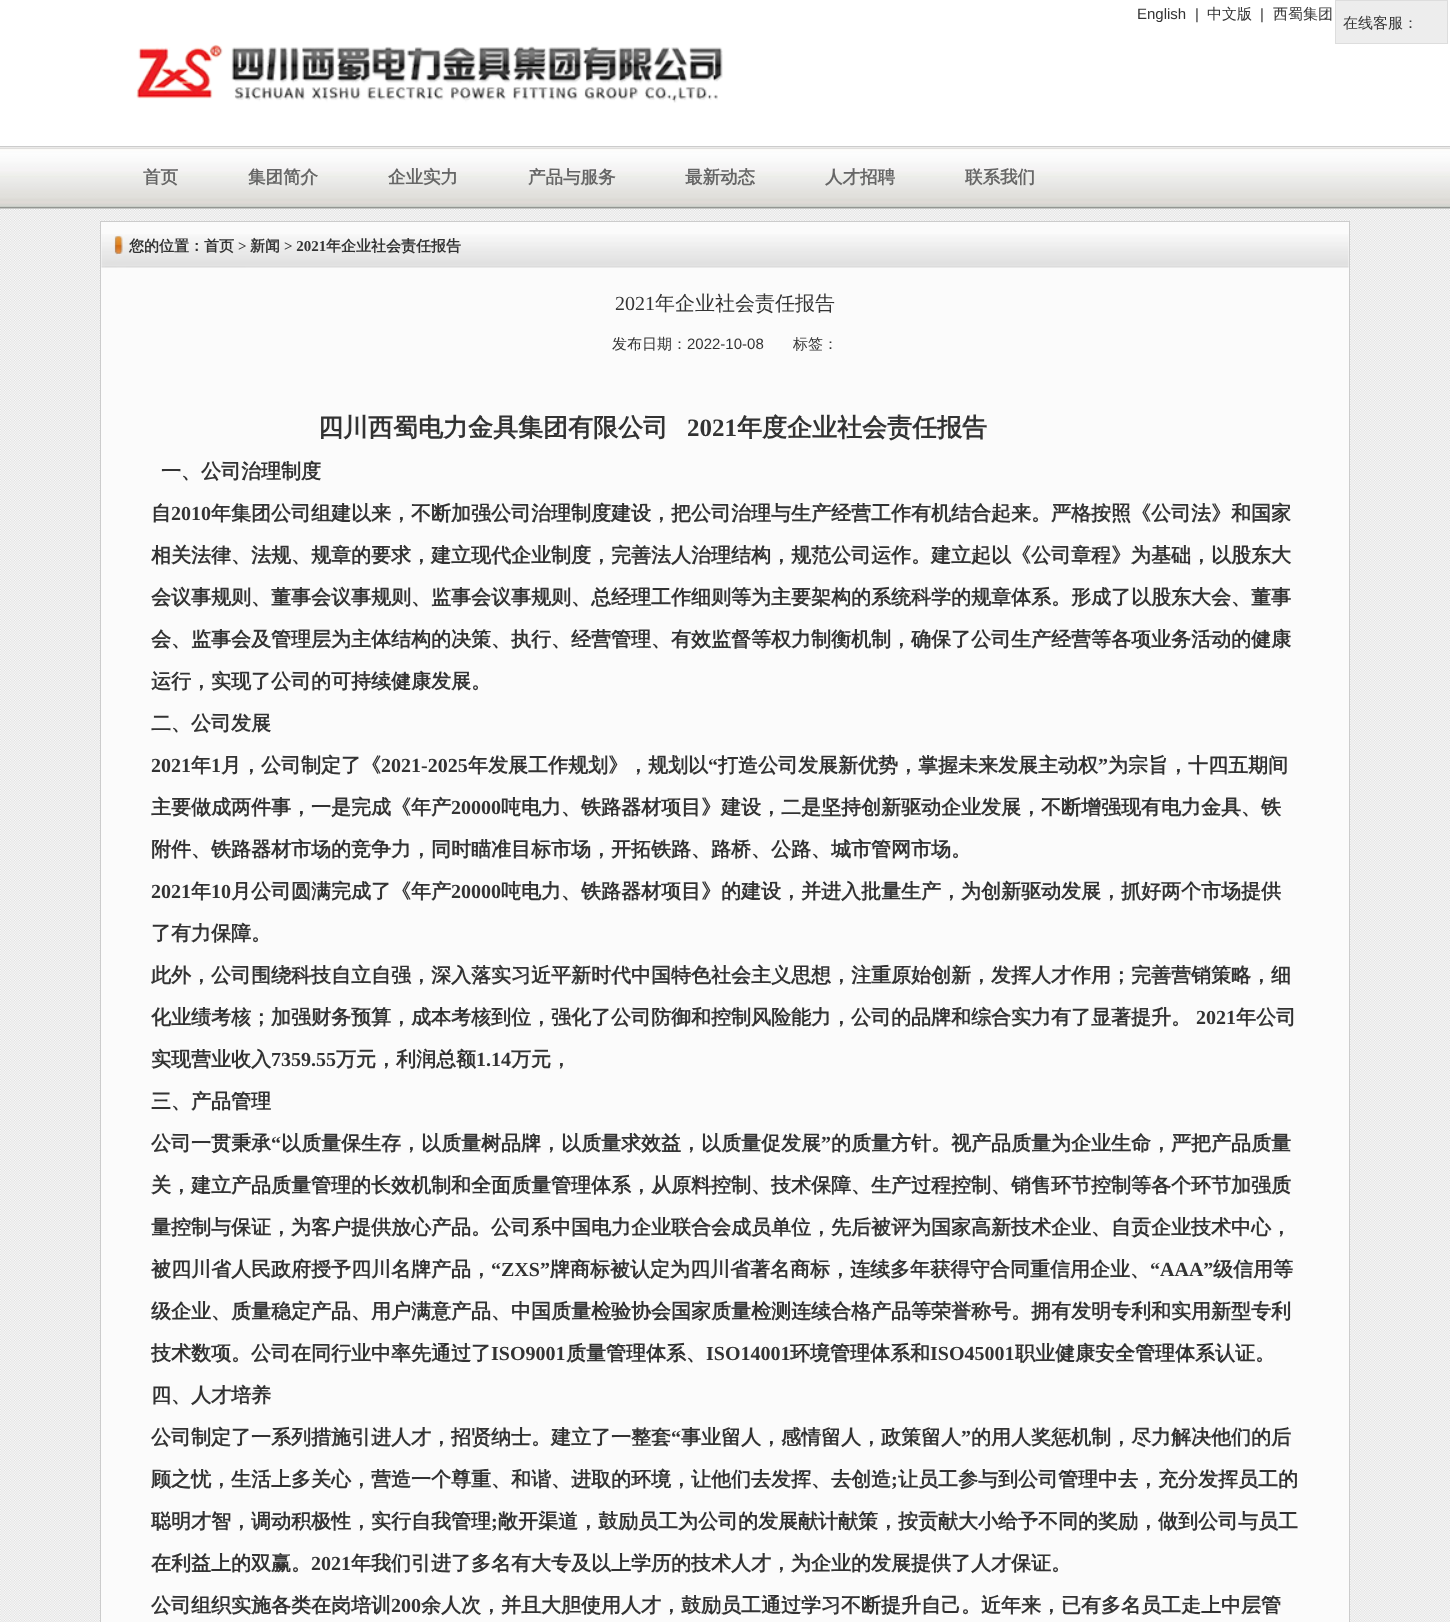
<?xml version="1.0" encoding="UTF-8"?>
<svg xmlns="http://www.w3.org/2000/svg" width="1450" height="1622">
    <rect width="100%" height="100%" fill="#FFFFFF"/>
    <image x="0" y="209" width="1450" height="1413" href="img_01.png"/>
    <rect x="0" y="146" width="1450" height="1" fill="#CCCCCC"/>
    <text x="1137" y="19" font-family="Liberation Sans" font-size="15" fill="#333333">English</text>
    <text x="1195" y="19" font-family="Liberation Sans" font-size="15" fill="#333333">|</text>
    <text x="1207" y="19" font-family="WenQuanYi Zen Hei" font-size="15" font-weight="500" fill="#333333">中文版</text>
    <text x="1260" y="19" font-family="Liberation Sans" font-size="15" fill="#333333">|</text>
    <text x="1273" y="19" font-family="WenQuanYi Zen Hei" font-size="15" font-weight="500" fill="#333333">西蜀集团</text>
    <image x="136" y="44" width="587" height="59" href="img_02.png"/>
    <rect x="1335.5" y="0.5" width="112" height="43" fill="#EDEDED" stroke="#DDDDDD"/>
    <text x="1343" y="28" font-family="WenQuanYi Zen Hei" font-size="15" font-weight="500" fill="#333333">在线客服：</text>
    <image x="0" y="147" width="1450" height="61" href="img_03.png"/>
    <rect x="0" y="208" width="1450" height="1" fill="#C4C6C3"/>
    <text x="143" y="183" font-family="WenQuanYi Zen Hei" font-size="17.5" font-weight="700" fill="#666666">首页</text>
    <text x="248" y="183" font-family="WenQuanYi Zen Hei" font-size="17.5" font-weight="700" fill="#666666">集团简介</text>
    <text x="388" y="183" font-family="WenQuanYi Zen Hei" font-size="17.5" font-weight="700" fill="#666666">企业实力</text>
    <text x="528" y="183" font-family="WenQuanYi Zen Hei" font-size="17.5" font-weight="700" fill="#666666">产品与服务</text>
    <text x="685" y="183" font-family="WenQuanYi Zen Hei" font-size="17.5" font-weight="700" fill="#666666">最新动态</text>
    <text x="825" y="183" font-family="WenQuanYi Zen Hei" font-size="17.5" font-weight="700" fill="#666666">人才招聘</text>
    <text x="965" y="183" font-family="WenQuanYi Zen Hei" font-size="17.5" font-weight="700" fill="#666666">联系我们</text>
    <rect x="100.5" y="221.5" width="1249" height="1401" fill="#FBFBFB" stroke="#CCCCCC"/>
    <image x="101" y="234" width="1248" height="34" href="img_04.png"/>
    <text x="129" y="251" font-family="WenQuanYi Zen Hei" font-size="15" font-weight="700" fill="#333333">您的位置：首页</text>
    <text x="238" y="251" font-family="Liberation Serif" font-size="15" font-weight="700" fill="#333333">&gt;</text>
    <text x="250" y="251" font-family="WenQuanYi Zen Hei" font-size="15" font-weight="700" fill="#333333">新闻</text>
    <text x="284" y="251" font-family="Liberation Serif" font-size="15" font-weight="700" fill="#333333">&gt; 2021</text>
    <text x="326" y="251" font-family="WenQuanYi Zen Hei" font-size="15" font-weight="700" fill="#333333">年企业社会责任报告</text>
    <text x="615" y="310" font-family="Liberation Serif" font-size="20" fill="#333333">2021</text>
    <text x="655" y="310" font-family="WenQuanYi Zen Hei" font-size="20" font-weight="500" fill="#333333">年企业社会责任报告</text>
    <text x="612" y="349" font-family="WenQuanYi Zen Hei" font-size="15" font-weight="500" fill="#333333">发布日期：</text>
    <text x="687" y="349" font-family="Liberation Sans" font-size="15" fill="#333333">2022-10-08</text>
    <text x="793" y="349" font-family="WenQuanYi Zen Hei" font-size="15" font-weight="500" fill="#333333">标签：</text>
    <text x="318" y="436" font-family="WenQuanYi Zen Hei" font-size="25" font-weight="700" fill="#333333">四川西蜀电力金具集团有限公司</text>
    <text x="687" y="436" font-family="Liberation Serif" font-size="25" font-weight="700" fill="#333333">2021</text>
    <text x="737" y="436" font-family="WenQuanYi Zen Hei" font-size="25" font-weight="700" fill="#333333">年度企业社会责任报告</text>
    <text x="161" y="478" font-family="WenQuanYi Zen Hei" font-size="20" font-weight="700" fill="#333333">一、公司治理制度</text>
    <text x="151" y="520" font-family="WenQuanYi Zen Hei" font-size="20" font-weight="700" fill="#333333">自</text>
    <text x="171" y="520" font-family="Liberation Serif" font-size="20" font-weight="700" fill="#333333">2010</text>
    <text x="211" y="520" font-family="WenQuanYi Zen Hei" font-size="20" font-weight="700" fill="#333333">年集团公司组建以来，不断加强公司治理制度建设，把公司治理与生产经营工作有机结合起来。严格按照《公司法》和国家</text>
    <text x="151" y="562" font-family="WenQuanYi Zen Hei" font-size="20" font-weight="700" fill="#333333">相关法律、法规、规章的要求，建立现代企业制度，完善法人治理结构，规范公司运作。建立起以《公司章程》为基础，以股东大</text>
    <text x="151" y="604" font-family="WenQuanYi Zen Hei" font-size="20" font-weight="700" fill="#333333">会议事规则、董事会议事规则、监事会议事规则、总经理工作细则等为主要架构的系统科学的规章体系。形成了以股东大会、董事</text>
    <text x="151" y="646" font-family="WenQuanYi Zen Hei" font-size="20" font-weight="700" fill="#333333">会、监事会及管理层为主体结构的决策、执行、经营管理、有效监督等权力制衡机制，确保了公司生产经营等各项业务活动的健康</text>
    <text x="151" y="688" font-family="WenQuanYi Zen Hei" font-size="20" font-weight="700" fill="#333333">运行，实现了公司的可持续健康发展。</text>
    <text x="151" y="730" font-family="WenQuanYi Zen Hei" font-size="20" font-weight="700" fill="#333333">二、公司发展</text>
    <text x="151" y="772" font-family="Liberation Serif" font-size="20" font-weight="700" fill="#333333">2021</text>
    <text x="191" y="772" font-family="WenQuanYi Zen Hei" font-size="20" font-weight="700" fill="#333333">年</text>
    <text x="211" y="772" font-family="Liberation Serif" font-size="20" font-weight="700" fill="#333333">1</text>
    <text x="221" y="772" font-family="WenQuanYi Zen Hei" font-size="20" font-weight="700" fill="#333333">月，公司制定了《</text>
    <text x="381" y="772" font-family="Liberation Serif" font-size="20" font-weight="700" fill="#333333">2021-2025</text>
    <text x="468" y="772" font-family="WenQuanYi Zen Hei" font-size="20" font-weight="700" fill="#333333">年发展工作规划》，规划以</text>
    <text x="708" y="772" font-family="Liberation Serif" font-size="20" font-weight="700" fill="#333333">“</text>
    <text x="718" y="772" font-family="WenQuanYi Zen Hei" font-size="20" font-weight="700" fill="#333333">打造公司发展新优势，掌握未来发展主动权</text>
    <text x="1098" y="772" font-family="Liberation Serif" font-size="20" font-weight="700" fill="#333333">”</text>
    <text x="1108" y="772" font-family="WenQuanYi Zen Hei" font-size="20" font-weight="700" fill="#333333">为宗旨，十四五期间</text>
    <text x="151" y="814" font-family="WenQuanYi Zen Hei" font-size="20" font-weight="700" fill="#333333">主要做成两件事，一是完成《年产</text>
    <text x="451" y="814" font-family="Liberation Serif" font-size="20" font-weight="700" fill="#333333">20000</text>
    <text x="501" y="814" font-family="WenQuanYi Zen Hei" font-size="20" font-weight="700" fill="#333333">吨电力、铁路器材项目》建设，二是坚持创新驱动企业发展，不断增强现有电力金具、铁</text>
    <text x="151" y="856" font-family="WenQuanYi Zen Hei" font-size="20" font-weight="700" fill="#333333">附件、铁路器材市场的竞争力，同时瞄准目标市场，开拓铁路、路桥、公路、城市管网市场。</text>
    <text x="151" y="898" font-family="Liberation Serif" font-size="20" font-weight="700" fill="#333333">2021</text>
    <text x="191" y="898" font-family="WenQuanYi Zen Hei" font-size="20" font-weight="700" fill="#333333">年</text>
    <text x="211" y="898" font-family="Liberation Serif" font-size="20" font-weight="700" fill="#333333">10</text>
    <text x="231" y="898" font-family="WenQuanYi Zen Hei" font-size="20" font-weight="700" fill="#333333">月公司圆满完成了《年产</text>
    <text x="451" y="898" font-family="Liberation Serif" font-size="20" font-weight="700" fill="#333333">20000</text>
    <text x="501" y="898" font-family="WenQuanYi Zen Hei" font-size="20" font-weight="700" fill="#333333">吨电力、铁路器材项目》的建设，并进入批量生产，为创新驱动发展，抓好两个市场提供</text>
    <text x="151" y="940" font-family="WenQuanYi Zen Hei" font-size="20" font-weight="700" fill="#333333">了有力保障。</text>
    <text x="151" y="982" font-family="WenQuanYi Zen Hei" font-size="20" font-weight="700" fill="#333333">此外，公司围绕科技自立自强，深入落实习近平新时代中国特色社会主义思想，注重原始创新，发挥人才作用；完善营销策略，细</text>
    <text x="151" y="1024" font-family="WenQuanYi Zen Hei" font-size="20" font-weight="700" fill="#333333">化业绩考核；加强财务预算，成本考核到位，强化了公司防御和控制风险能力，公司的品牌和综合实力有了显著提升。</text>
    <text x="1196" y="1024" font-family="Liberation Serif" font-size="20" font-weight="700" fill="#333333">2021</text>
    <text x="1236" y="1024" font-family="WenQuanYi Zen Hei" font-size="20" font-weight="700" fill="#333333">年公司</text>
    <text x="151" y="1066" font-family="WenQuanYi Zen Hei" font-size="20" font-weight="700" fill="#333333">实现营业收入</text>
    <text x="271" y="1066" font-family="Liberation Serif" font-size="20" font-weight="700" fill="#333333">7359.55</text>
    <text x="336" y="1066" font-family="WenQuanYi Zen Hei" font-size="20" font-weight="700" fill="#333333">万元，利润总额</text>
    <text x="476" y="1066" font-family="Liberation Serif" font-size="20" font-weight="700" fill="#333333">1.14</text>
    <text x="511" y="1066" font-family="WenQuanYi Zen Hei" font-size="20" font-weight="700" fill="#333333">万元，</text>
    <text x="151" y="1108" font-family="WenQuanYi Zen Hei" font-size="20" font-weight="700" fill="#333333">三、产品管理</text>
    <text x="151" y="1150" font-family="WenQuanYi Zen Hei" font-size="20" font-weight="700" fill="#333333">公司一贯秉承</text>
    <text x="271" y="1150" font-family="Liberation Serif" font-size="20" font-weight="700" fill="#333333">“</text>
    <text x="281" y="1150" font-family="WenQuanYi Zen Hei" font-size="20" font-weight="700" fill="#333333">以质量保生存，以质量树品牌，以质量求效益，以质量促发展</text>
    <text x="821" y="1150" font-family="Liberation Serif" font-size="20" font-weight="700" fill="#333333">”</text>
    <text x="831" y="1150" font-family="WenQuanYi Zen Hei" font-size="20" font-weight="700" fill="#333333">的质量方针。视产品质量为企业生命，严把产品质量</text>
    <text x="151" y="1192" font-family="WenQuanYi Zen Hei" font-size="20" font-weight="700" fill="#333333">关，建立产品质量管理的长效机制和全面质量管理体系，从原料控制、技术保障、生产过程控制、销售环节控制等各个环节加强质</text>
    <text x="151" y="1234" font-family="WenQuanYi Zen Hei" font-size="20" font-weight="700" fill="#333333">量控制与保证，为客户提供放心产品。公司系中国电力企业联合会成员单位，先后被评为国家高新技术企业、自贡企业技术中心，</text>
    <text x="151" y="1276" font-family="WenQuanYi Zen Hei" font-size="20" font-weight="700" fill="#333333">被四川省人民政府授予四川名牌产品，</text>
    <text x="491" y="1276" font-family="Liberation Serif" font-size="20" font-weight="700" fill="#333333">“ZXS”</text>
    <text x="550" y="1276" font-family="WenQuanYi Zen Hei" font-size="20" font-weight="700" fill="#333333">牌商标被认定为四川省著名商标，连续多年获得守合同重信用企业、</text>
    <text x="1150" y="1276" font-family="Liberation Serif" font-size="20" font-weight="700" fill="#333333">“AAA”</text>
    <text x="1213" y="1276" font-family="WenQuanYi Zen Hei" font-size="20" font-weight="700" fill="#333333">级信用等</text>
    <text x="151" y="1318" font-family="WenQuanYi Zen Hei" font-size="20" font-weight="700" fill="#333333">级企业、质量稳定产品、用户满意产品、中国质量检验协会国家质量检测连续合格产品等荣誉称号。拥有发明专利和实用新型专利</text>
    <text x="151" y="1360" font-family="WenQuanYi Zen Hei" font-size="20" font-weight="700" fill="#333333">技术数项。公司在同行业中率先通过了</text>
    <text x="491" y="1360" font-family="Liberation Serif" font-size="20" font-weight="700" fill="#333333">ISO9001</text>
    <text x="566" y="1360" font-family="WenQuanYi Zen Hei" font-size="20" font-weight="700" fill="#333333">质量管理体系、</text>
    <text x="706" y="1360" font-family="Liberation Serif" font-size="20" font-weight="700" fill="#333333">ISO14001</text>
    <text x="790" y="1360" font-family="WenQuanYi Zen Hei" font-size="20" font-weight="700" fill="#333333">环境管理体系和</text>
    <text x="930" y="1360" font-family="Liberation Serif" font-size="20" font-weight="700" fill="#333333">ISO45001</text>
    <text x="1015" y="1360" font-family="WenQuanYi Zen Hei" font-size="20" font-weight="700" fill="#333333">职业健康安全管理体系认证。</text>
    <text x="151" y="1402" font-family="WenQuanYi Zen Hei" font-size="20" font-weight="700" fill="#333333">四、人才培养</text>
    <text x="151" y="1444" font-family="WenQuanYi Zen Hei" font-size="20" font-weight="700" fill="#333333">公司制定了一系列措施引进人才，招贤纳士。建立了一整套</text>
    <text x="671" y="1444" font-family="Liberation Serif" font-size="20" font-weight="700" fill="#333333">“</text>
    <text x="681" y="1444" font-family="WenQuanYi Zen Hei" font-size="20" font-weight="700" fill="#333333">事业留人，感情留人，政策留人</text>
    <text x="961" y="1444" font-family="Liberation Serif" font-size="20" font-weight="700" fill="#333333">”</text>
    <text x="971" y="1444" font-family="WenQuanYi Zen Hei" font-size="20" font-weight="700" fill="#333333">的用人奖惩机制，尽力解决他们的后</text>
    <text x="151" y="1486" font-family="WenQuanYi Zen Hei" font-size="20" font-weight="700" fill="#333333">顾之忧，生活上多关心，营造一个尊重、和谐、进取的环境，让他们去发挥、去创造</text>
    <text x="891" y="1486" font-family="Liberation Serif" font-size="20" font-weight="700" fill="#333333">;</text>
    <text x="898" y="1486" font-family="WenQuanYi Zen Hei" font-size="20" font-weight="700" fill="#333333">让员工参与到公司管理中去，充分发挥员工的</text>
    <text x="151" y="1528" font-family="WenQuanYi Zen Hei" font-size="20" font-weight="700" fill="#333333">聪明才智，调动积极性，实行自我管理</text>
    <text x="491" y="1528" font-family="Liberation Serif" font-size="20" font-weight="700" fill="#333333">;</text>
    <text x="498" y="1528" font-family="WenQuanYi Zen Hei" font-size="20" font-weight="700" fill="#333333">敞开渠道，鼓励员工为公司的发展献计献策，按贡献大小给予不同的奖励，做到公司与员工</text>
    <text x="151" y="1570" font-family="WenQuanYi Zen Hei" font-size="20" font-weight="700" fill="#333333">在利益上的双赢。</text>
    <text x="311" y="1570" font-family="Liberation Serif" font-size="20" font-weight="700" fill="#333333">2021</text>
    <text x="351" y="1570" font-family="WenQuanYi Zen Hei" font-size="20" font-weight="700" fill="#333333">年我们引进了多名有大专及以上学历的技术人才，为企业的发展提供了人才保证。</text>
    <text x="151" y="1612" font-family="WenQuanYi Zen Hei" font-size="20" font-weight="700" fill="#333333">公司组织实施各类在岗培训</text>
    <text x="391" y="1612" font-family="Liberation Serif" font-size="20" font-weight="700" fill="#333333">200</text>
    <text x="421" y="1612" font-family="WenQuanYi Zen Hei" font-size="20" font-weight="700" fill="#333333">余人次，并且大胆使用人才，鼓励员工通过学习不断提升自己。近年来，已有多名员工走上中层管</text>
</svg>
